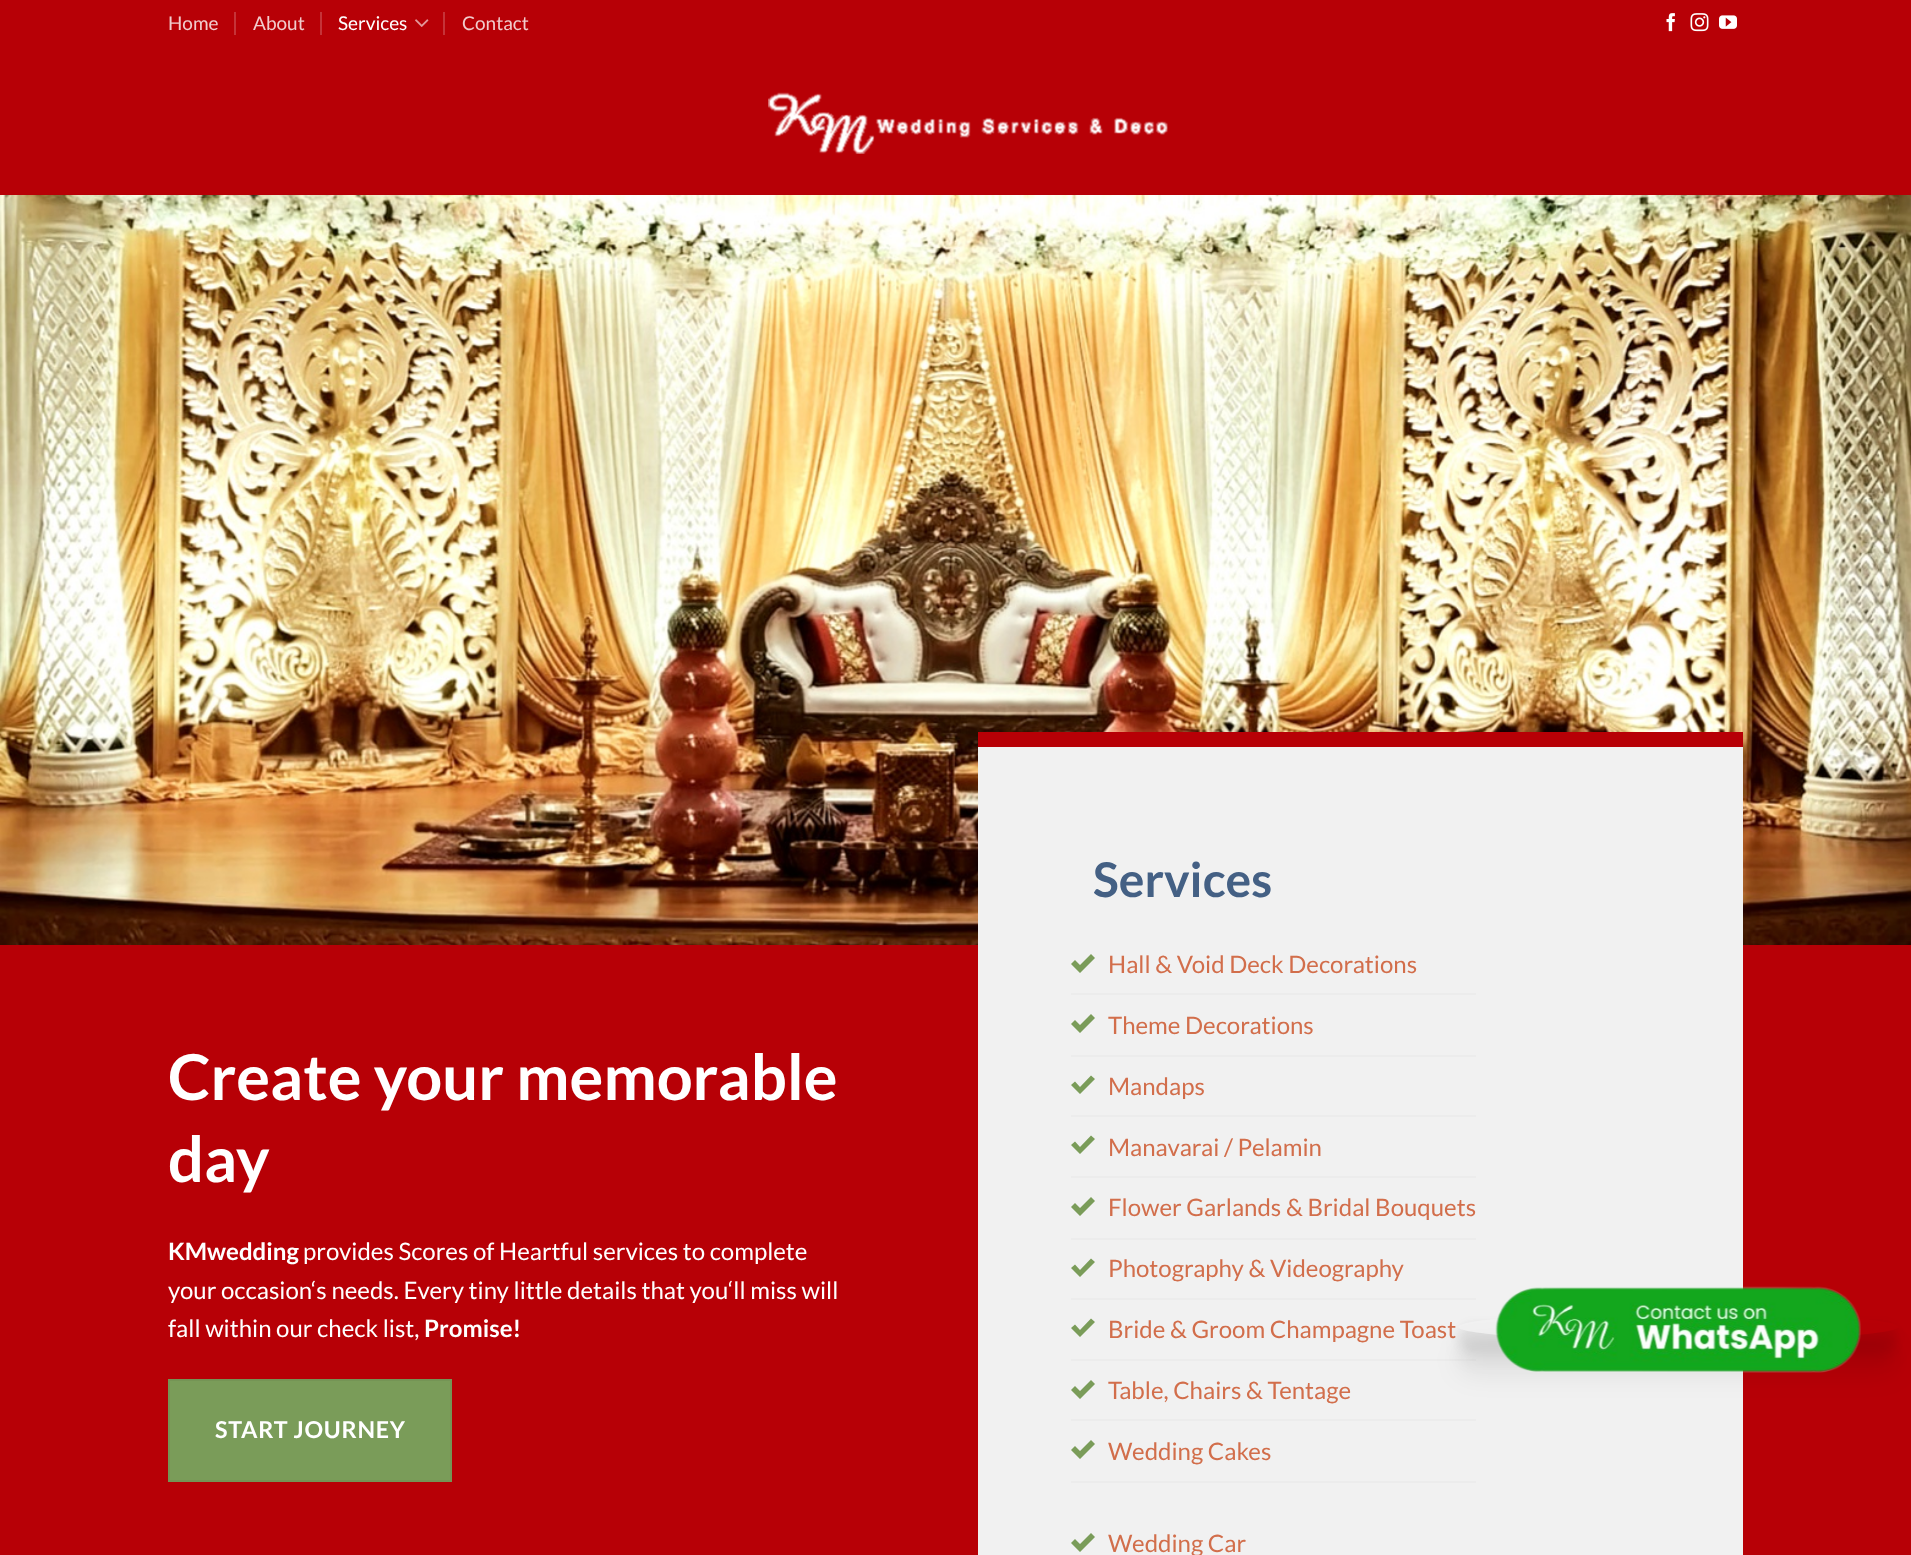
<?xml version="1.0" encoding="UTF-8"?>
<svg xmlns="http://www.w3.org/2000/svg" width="1911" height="1555">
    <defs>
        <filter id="blur1" x="-50%" y="-200%" width="200%" height="500%"><feGaussianBlur stdDeviation="13.5"/></filter>
        <clipPath id="clip1"><path d="M 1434 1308 H 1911 V 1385 H 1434 Z M 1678 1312.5 C 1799.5 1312.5 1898 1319 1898 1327 C 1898 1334.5 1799.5 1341 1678 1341 C 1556.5 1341 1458.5 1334.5 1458.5 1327 C 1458.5 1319 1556.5 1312.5 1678 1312.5 Z" clip-rule="evenodd"/></clipPath>
        <filter id="blur2" x="-50%" y="-200%" width="200%" height="500%"><feGaussianBlur stdDeviation="7.5"/></filter>
        <clipPath id="clip2"><path d="M 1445 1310 H 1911 V 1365 H 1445 Z M 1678 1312.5 C 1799.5 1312.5 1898 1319 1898 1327 C 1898 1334.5 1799.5 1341 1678 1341 C 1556.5 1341 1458.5 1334.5 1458.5 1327 C 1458.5 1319 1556.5 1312.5 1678 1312.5 Z" clip-rule="evenodd"/></clipPath>
        <filter id="blur3" x="-50%" y="-200%" width="200%" height="500%"><feGaussianBlur stdDeviation="4"/></filter>
    </defs>
    <rect width="100%" height="100%" fill="#FFFFFF"/>
    <rect x="0" y="0" width="1911" height="195" fill="#B70006"/>
    <text x="168" y="30" font-family="Lato" font-size="19" fill="#F1CCCD">Home</text>
    <rect x="234" y="12" width="2" height="23" fill="#C53338"/>
    <text x="253" y="30" font-family="Lato" font-size="19" fill="#F1CCCD">About</text>
    <rect x="320" y="12" width="2" height="23" fill="#C53338"/>
    <text x="338" y="30" font-family="Lato" font-size="19" fill="#FFFFFF">Services</text>
    <image x="415" y="19" width="14" height="8" href="img_01.png"/>
    <rect x="443" y="12" width="2" height="23" fill="#C53338"/>
    <text x="462" y="30" font-family="Lato" font-size="19" fill="#F1CCCD">Contact</text>
    <image x="1666" y="13" width="9" height="19" href="img_02.png"/>
    <image x="1690" y="13" width="19" height="19" href="img_03.png"/>
    <image x="1719" y="15" width="18" height="14" href="img_04.png"/>
    <image x="768" y="92" width="400" height="62" href="img_05.png"/>
    <image x="0" y="195" width="1911" height="750" href="img_06.png"/>
    <rect x="168" y="195" width="1575" height="2" fill="#FFFFFF" fill-opacity="0.1"/>
    <rect x="0" y="945" width="1911" height="610" fill="#B70006"/>
    <text font-family="Lato" font-size="63.25" font-weight="700" fill="#FFFFFF">
        <tspan x="168" y="1100">Create your memorable</tspan>
        <tspan x="168" y="1182">day</tspan>
    </text>
    <text x="168" y="1260" font-family="Lato" font-size="24" font-weight="700" fill="#FFFFFF">KMwedding</text>
    <text x="303" y="1260" font-family="Lato" font-size="24" fill="#FFFFFF">provides Scores of Heartful services to complete</text>
    <text font-family="Lato" font-size="24" fill="#FFFFFF">
        <tspan x="168" y="1299">your occasion‘s needs. Every tiny little details that you‘ll miss will</tspan>
        <tspan x="168" y="1337">fall within our check list,</tspan>
    </text>
    <text x="424" y="1337" font-family="Lato" font-size="24" font-weight="700" fill="#FFFFFF">Promise!</text>
    <rect x="169" y="1380" width="282" height="101" fill="#7A9C59" stroke="#749455" stroke-width="2"/>
    <text x="215" y="1438" font-family="Lato" font-size="23.25" font-weight="700" letter-spacing="0.75" fill="#FFFFFF">START JOURNEY</text>
    <rect x="978" y="747" width="765" height="808" fill="#F1F1F1"/>
    <rect x="978" y="732" width="765" height="15" fill="#B70006"/>
    <text x="1093" y="897" font-family="Lato" font-size="48" font-weight="700" fill="#446084">Services</text>
    <rect x="1071" y="993" width="405" height="2" fill="#ECECEC"/>
    <path d="M 1091 954 L 1080 965 L 1075 960 L 1071 964 L 1080 973 L 1095 958 Z" fill="#7A9C59"/>
    <text x="1108" y="973" font-family="Lato" font-size="24" fill="#D26E4B">Hall &amp; Void Deck Decorations</text>
    <rect x="1071" y="1055" width="405" height="2" fill="#ECECEC"/>
    <path d="M 1091 1014 L 1080 1025 L 1075 1020 L 1071 1024 L 1080 1033 L 1095 1018 Z" fill="#7A9C59"/>
    <text x="1108" y="1034" font-family="Lato" font-size="24" fill="#D26E4B">Theme Decorations</text>
    <rect x="1071" y="1115" width="405" height="2" fill="#ECECEC"/>
    <path d="M 1091 1075.5 L 1080 1087 L 1075 1081.5 L 1071 1085 L 1080 1094 L 1095 1079 Z" fill="#7A9C59"/>
    <text x="1108" y="1095" font-family="Lato" font-size="24" fill="#D26E4B">Mandaps</text>
    <rect x="1071" y="1176" width="405" height="2" fill="#ECECEC"/>
    <path d="M 1091 1135.5 L 1080 1147 L 1075 1141.5 L 1071 1145 L 1080 1154 L 1095 1139 Z" fill="#7A9C59"/>
    <text x="1108" y="1156" font-family="Lato" font-size="24" fill="#D26E4B">Manavarai / Pelamin</text>
    <rect x="1071" y="1238" width="405" height="2" fill="#ECECEC"/>
    <path d="M 1091 1197 L 1080 1208 L 1075 1203 L 1071 1207 L 1080 1216 L 1095 1201 Z" fill="#7A9C59"/>
    <text x="1108" y="1216" font-family="Lato" font-size="24" fill="#D26E4B">Flower Garlands &amp; Bridal Bouquets</text>
    <rect x="1071" y="1298" width="405" height="2" fill="#ECECEC"/>
    <path d="M 1091 1258.5 L 1080 1270 L 1075 1264.5 L 1071 1268 L 1080 1277 L 1095 1262 Z" fill="#7A9C59"/>
    <text x="1108" y="1277" font-family="Lato" font-size="24" fill="#D26E4B">Photography &amp; Videography</text>
    <rect x="1071" y="1359" width="405" height="2" fill="#ECECEC"/>
    <path d="M 1091 1318.5 L 1080 1330 L 1075 1324.5 L 1071 1328 L 1080 1337 L 1095 1322 Z" fill="#7A9C59"/>
    <text x="1108" y="1338" font-family="Lato" font-size="24" fill="#D26E4B">Bride &amp; Groom Champagne Toast</text>
    <rect x="1071" y="1419" width="405" height="2" fill="#ECECEC"/>
    <path d="M 1091 1380 L 1080 1391 L 1075 1386 L 1071 1390 L 1080 1399 L 1095 1384 Z" fill="#7A9C59"/>
    <text x="1108" y="1399" font-family="Lato" font-size="24" fill="#D26E4B">Table, Chairs &amp; Tentage</text>
    <rect x="1071" y="1481" width="405" height="2" fill="#ECECEC"/>
    <path d="M 1091 1440 L 1080 1451 L 1075 1446 L 1071 1450 L 1080 1459 L 1095 1444 Z" fill="#7A9C59"/>
    <text x="1108" y="1460" font-family="Lato" font-size="24" fill="#D26E4B">Wedding Cakes</text>
    <path d="M 1091 1533 L 1080 1544 L 1075 1539 L 1071 1543 L 1080 1552 L 1095 1537 Z" fill="#7A9C59"/>
    <text x="1108" y="1552" font-family="Lato" font-size="24" fill="#D26E4B">Wedding Car</text>
    <rect x="1458" y="1346" width="440" height="28" rx="14" fill="#000000" fill-opacity="0.07" filter="url(#blur1)"/>
    <g clip-path="url(#clip1)">
        <rect x="1458" y="1332" width="440" height="29" rx="14.5" fill="#000000" fill-opacity="0.06" filter="url(#blur2)"/>
    </g>
    <g clip-path="url(#clip2)">
        <rect x="1458" y="1323" width="440" height="29" rx="14.5" fill="#000000" fill-opacity="0.05" filter="url(#blur3)"/>
    </g>
    <image x="1495" y="1286" width="366" height="87" href="img_07.png"/>
</svg>
